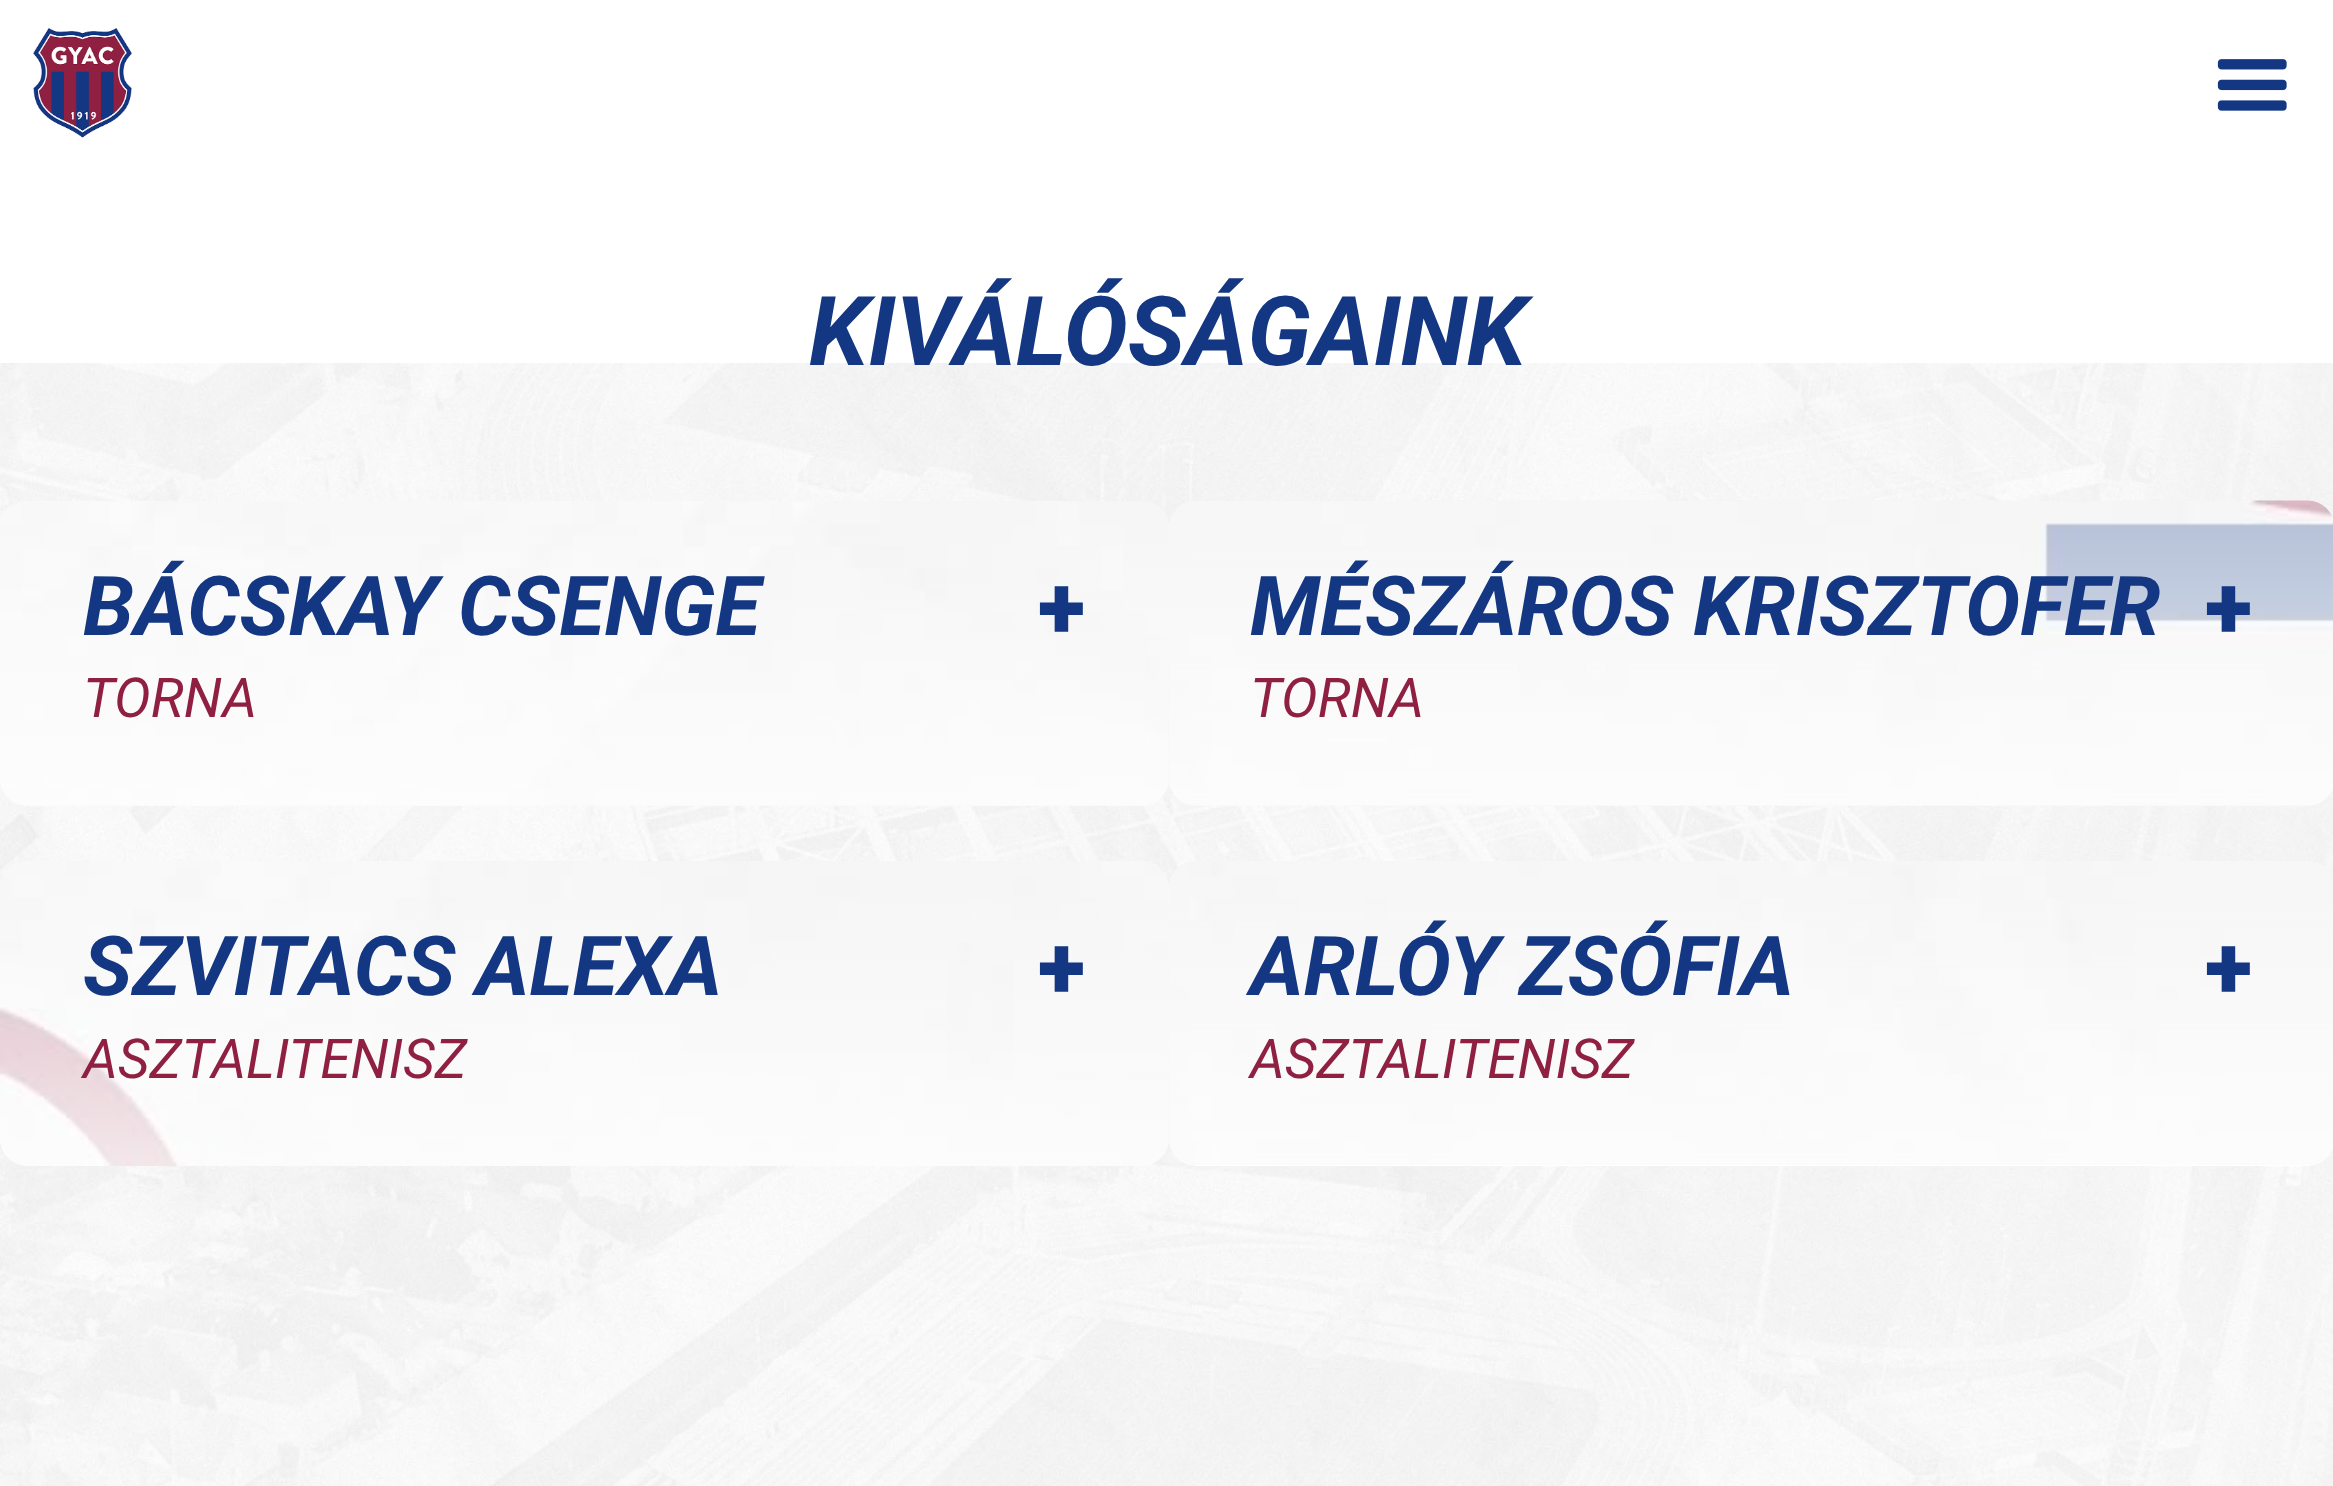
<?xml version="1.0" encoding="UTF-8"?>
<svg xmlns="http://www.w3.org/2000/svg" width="2333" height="1486">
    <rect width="100%" height="100%" fill="#FFFFFF"/>
    <image x="33" y="28" width="99" height="110" href="img_01.png"/>
    <image x="2217" y="59" width="70" height="52" href="img_02.png"/>
    <image x="0" y="363" width="2333" height="1123" href="img_03.png"/>
    <text x="809" y="365" font-family="Roboto" font-size="96.25" font-weight="700" font-style="italic" fill="#133782">KIVÁLÓSÁGAINK</text>
    <rect x="0" y="501" width="1169" height="305" rx="28" fill="#FFFFFF"/>
    <image x="0" y="501" width="1169" height="305" href="img_04.png"/>
    <text x="83" y="635" font-family="Roboto" font-size="82.5" font-weight="700" font-style="italic" fill="#133782">BÁCSKAY CSENGE</text>
    <text x="83" y="717" font-family="Roboto" font-size="55" font-style="italic" fill="#8F2041">TORNA</text>
    <text x="1038" y="638" font-family="Roboto" font-size="88" font-weight="900" fill="#133782">+</text>
    <rect x="0" y="861" width="1169" height="305" rx="28" fill="#FFFFFF"/>
    <image x="0" y="861" width="1169" height="305" href="img_05.png"/>
    <text x="83" y="995" font-family="Roboto" font-size="82.5" font-weight="700" font-style="italic" fill="#133782">SZVITACS ALEXA</text>
    <text x="83" y="1078" font-family="Roboto" font-size="55" font-style="italic" fill="#8F2041">ASZTALITENISZ</text>
    <text x="1038" y="998" font-family="Roboto" font-size="88" font-weight="900" fill="#133782">+</text>
    <rect x="1169" y="501" width="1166" height="305" rx="28" fill="#FFFFFF"/>
    <image x="1169" y="500" width="1164" height="306" href="img_06.png"/>
    <text x="1250" y="635" font-family="Roboto" font-size="82.5" font-weight="700" font-style="italic" fill="#133782">MÉSZÁROS KRISZTOFER</text>
    <text x="1250" y="717" font-family="Roboto" font-size="55" font-style="italic" fill="#8F2041">TORNA</text>
    <text x="2205" y="638" font-family="Roboto" font-size="88" font-weight="900" fill="#133782">+</text>
    <rect x="1169" y="861" width="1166" height="305" rx="28" fill="#FFFFFF"/>
    <image x="1169" y="861" width="1164" height="304" href="img_07.png"/>
    <text x="1250" y="995" font-family="Roboto" font-size="82.5" font-weight="700" font-style="italic" fill="#133782">ARLÓY ZSÓFIA</text>
    <text x="1250" y="1078" font-family="Roboto" font-size="55" font-style="italic" fill="#8F2041">ASZTALITENISZ</text>
    <text x="2205" y="998" font-family="Roboto" font-size="88" font-weight="900" fill="#133782">+</text>
</svg>
